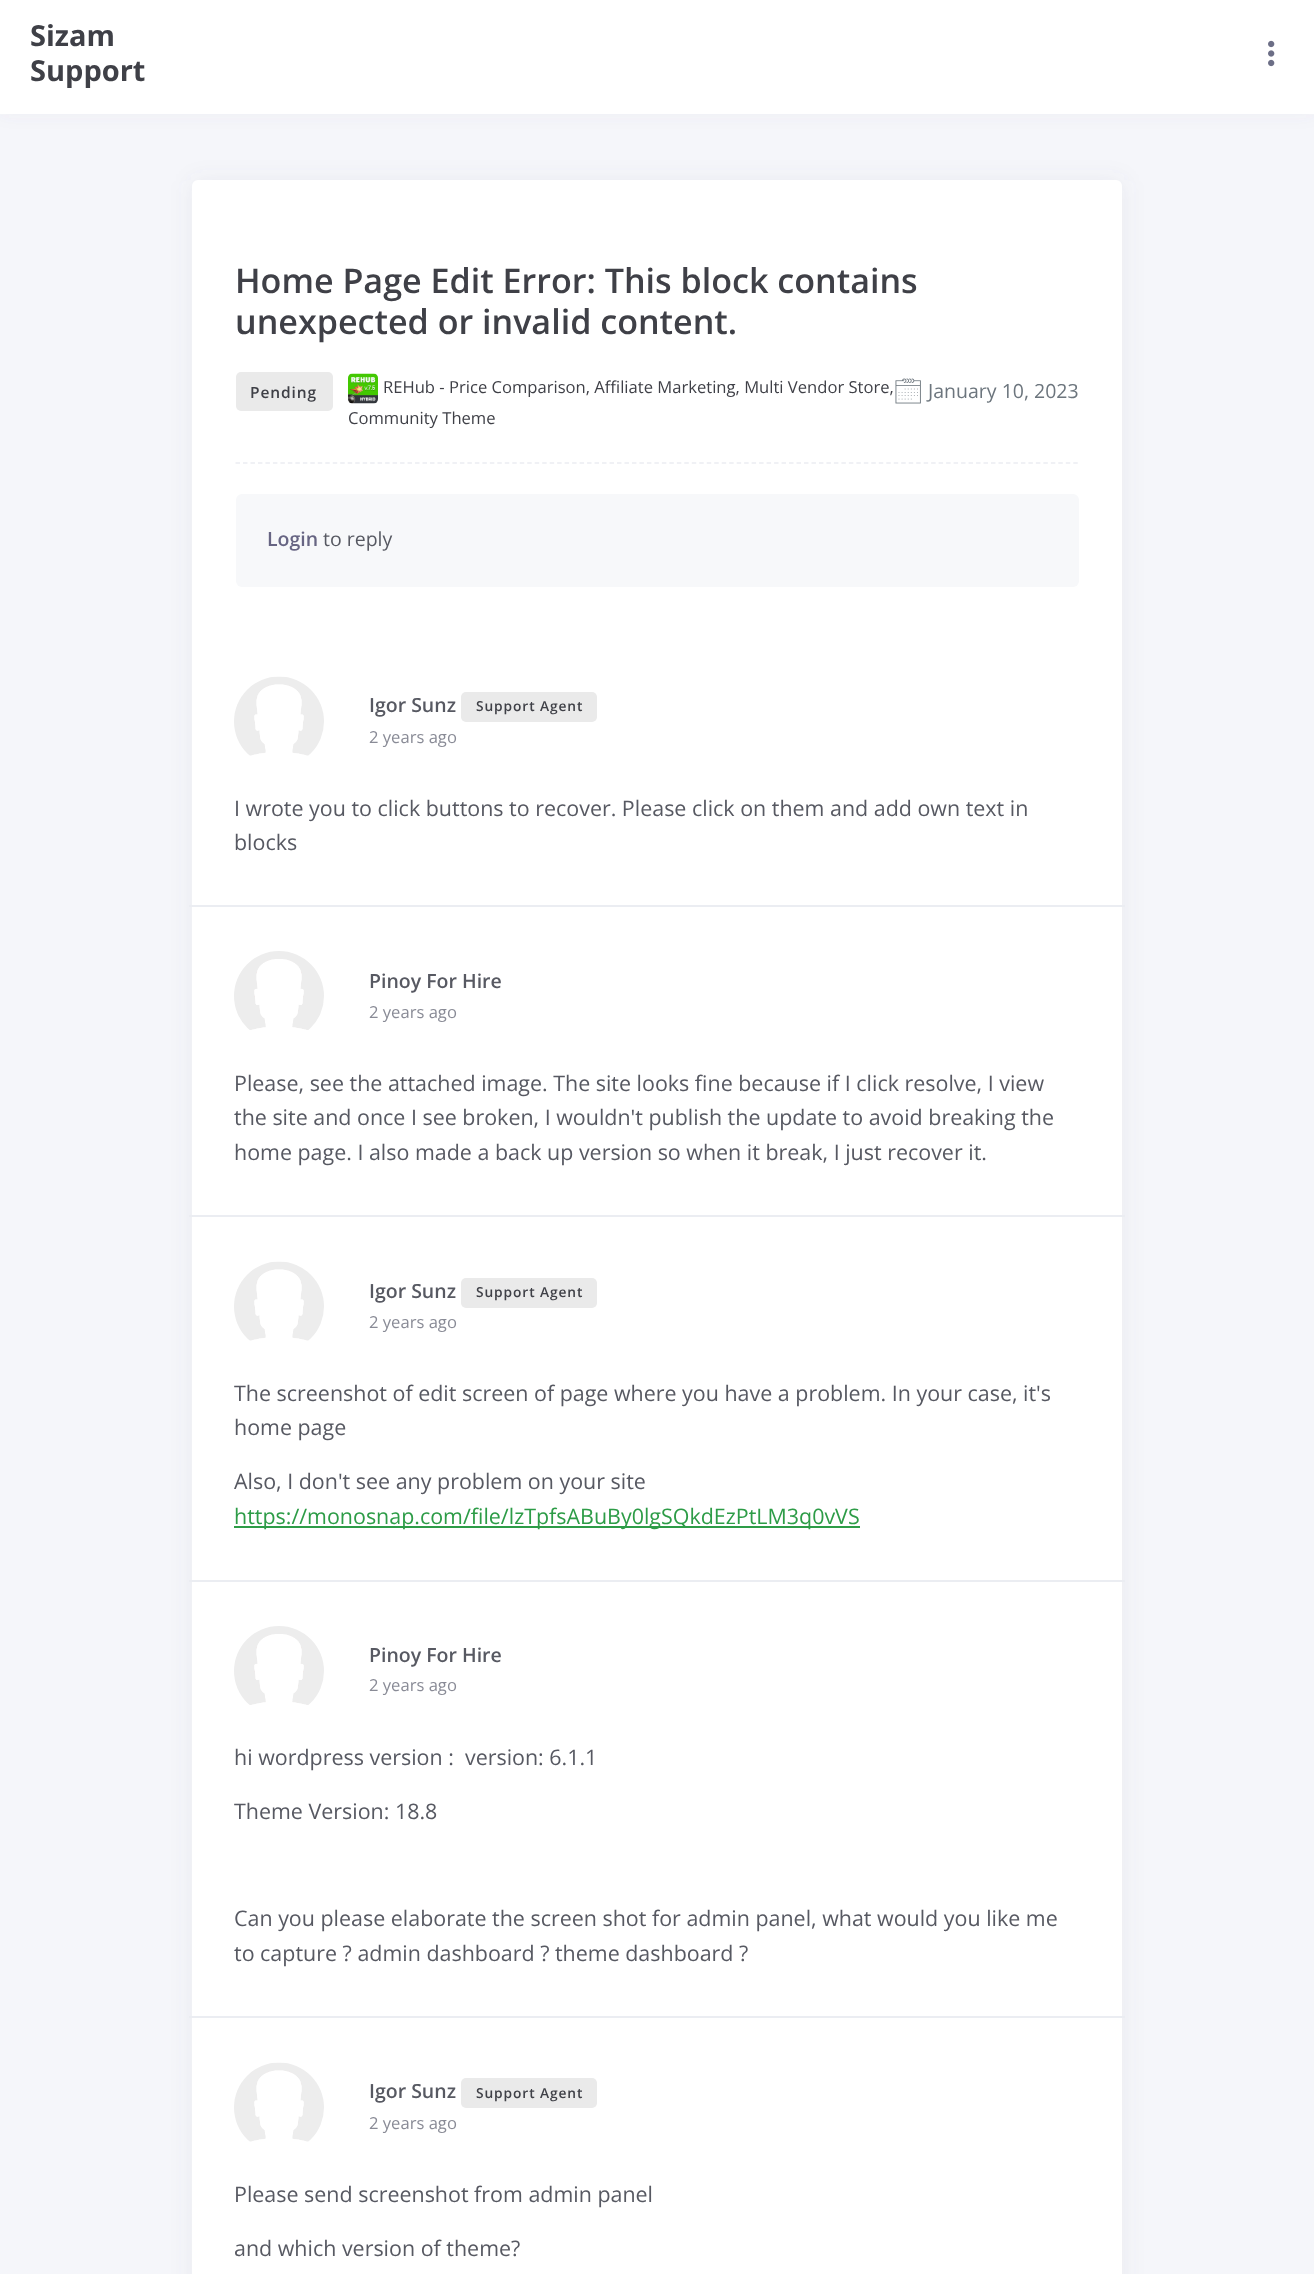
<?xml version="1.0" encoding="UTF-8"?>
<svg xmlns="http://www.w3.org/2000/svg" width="1314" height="2274">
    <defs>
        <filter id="blur1" x="-50%" y="-200%" width="200%" height="500%"><feGaussianBlur stdDeviation="11"/></filter>
    </defs>
    <rect width="100%" height="100%" fill="#F5F6FA"/>
    <rect x="-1" y="0" width="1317" height="108" fill="#676583" fill-opacity="0.1" filter="url(#blur1)"/>
    <rect x="0" y="0" width="1314" height="114" fill="#FFFFFF"/>
    <text font-family="Open Sans" font-size="29" font-weight="700" fill="#3F4047">
        <tspan x="30" y="46">Sizam</tspan>
        <tspan x="30" y="81">Support</tspan>
    </text>
    <image x="1268" y="40" width="7" height="27" href="img_01.png"/>
    <rect x="191" y="180" width="933" height="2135" rx="8" fill="#676583" fill-opacity="0.08" filter="url(#blur1)"/>
    <rect x="192" y="180" width="930" height="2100" rx="6" fill="#FFFFFF"/>
    <path d="M 235.5 463 H 1078.5" fill="none" stroke="#EBEDF2" stroke-width="1.5" stroke-dasharray="4.5 2.98"/>
    <text font-family="Open Sans" font-size="34.1" font-weight="600" fill="#3F4047">
        <tspan x="235" y="293">Home Page Edit Error: This block contains</tspan>
        <tspan x="235" y="334">unexpected or invalid content.</tspan>
    </text>
    <rect x="236" y="372" width="97" height="39" rx="5" fill="#EAEAEA"/>
    <text x="250" y="398" font-family="Open Sans" font-size="15.5" font-weight="600" letter-spacing="0.9" fill="#3F4047">Pending</text>
    <image x="348" y="373" width="30" height="31" href="img_02.png"/>
    <text x="383" y="393" font-family="Open Sans" font-size="16.6" fill="#3F4047">REHub - Price Comparison, Affiliate Marketing, Multi Vendor Store,</text>
    <text x="348" y="424" font-family="Open Sans" font-size="16.6" fill="#3F4047">Community Theme</text>
    <image x="895" y="378" width="26" height="26" href="img_03.png"/>
    <text x="928" y="398" font-family="Open Sans" font-size="19.5" fill="#6C757D">January 10, 2023</text>
    <rect x="236" y="494" width="843" height="93" rx="6" fill="#F7F8FA"/>
    <text x="267" y="546" font-family="Open Sans" font-size="19.5" font-weight="600" fill="#676583">Login</text>
    <text x="323" y="546" font-family="Open Sans" font-size="19.5" fill="#575962">to reply</text>
    <image x="234" y="676" width="90" height="80" href="img_04.png"/>
    <text x="369" y="712" font-family="Open Sans" font-size="19.5" font-weight="600" fill="#575962">Igor Sunz</text>
    <rect x="461" y="692" width="136" height="30" rx="5" fill="#EAEAEA"/>
    <text x="476" y="711" font-family="Open Sans" font-size="13.75" font-weight="600" letter-spacing="0.9" fill="#3F4047">Support Agent</text>
    <text x="369" y="743" font-family="Open Sans" font-size="16.6" fill="#898B96">2 years ago</text>
    <text font-family="Open Sans" font-size="21.45" fill="#575962">
        <tspan x="234" y="816">I wrote you to click buttons to recover. Please click on them and add own text in</tspan>
        <tspan x="234" y="850">blocks</tspan>
    </text>
    <rect x="189" y="905" width="936" height="2" fill="#EBEDF2"/>
    <image x="234" y="951" width="90" height="79" href="img_05.png"/>
    <text x="369" y="988" font-family="Open Sans" font-size="19.5" font-weight="600" fill="#575962">Pinoy For Hire</text>
    <text x="369" y="1018" font-family="Open Sans" font-size="16.6" fill="#898B96">2 years ago</text>
    <text font-family="Open Sans" font-size="21.45" fill="#575962">
        <tspan x="234" y="1091">Please, see the attached image. The site looks fine because if I click resolve, I view</tspan>
        <tspan x="234" y="1125">the site and once I see broken, I wouldn't publish the update to avoid breaking the</tspan>
        <tspan x="234" y="1160">home page. I also made a back up version so when it break, I just recover it.</tspan>
    </text>
    <rect x="189" y="1215" width="936" height="2" fill="#EBEDF2"/>
    <image x="234" y="1261" width="90" height="80" href="img_06.png"/>
    <text x="369" y="1298" font-family="Open Sans" font-size="19.5" font-weight="600" fill="#575962">Igor Sunz</text>
    <rect x="461" y="1278" width="136" height="30" rx="5" fill="#EAEAEA"/>
    <text x="476" y="1297" font-family="Open Sans" font-size="13.75" font-weight="600" letter-spacing="0.9" fill="#3F4047">Support Agent</text>
    <text x="369" y="1328" font-family="Open Sans" font-size="16.6" fill="#898B96">2 years ago</text>
    <text font-family="Open Sans" font-size="21.45" fill="#575962">
        <tspan x="234" y="1401">The screenshot of edit screen of page where you have a problem. In your case, it's</tspan>
        <tspan x="234" y="1435">home page</tspan>
    </text>
    <text x="234" y="1489" font-family="Open Sans" font-size="21.45" fill="#575962">Also, I don't see any problem on your site</text>
    <rect x="234" y="1526" width="626" height="2" fill="#2D9C47"/>
    <text x="234" y="1524" font-family="Open Sans" font-size="21.45" fill="#2D9C47">https://monosnap.com/file/lzTpfsABuBy0lgSQkdEzPtLM3q0vVS</text>
    <rect x="189" y="1580" width="936" height="2" fill="#EBEDF2"/>
    <image x="234" y="1626" width="90" height="79" href="img_07.png"/>
    <text x="369" y="1662" font-family="Open Sans" font-size="19.5" font-weight="600" fill="#575962">Pinoy For Hire</text>
    <text x="369" y="1691" font-family="Open Sans" font-size="16.6" fill="#898B96">2 years ago</text>
    <text x="234" y="1765" font-family="Open Sans" font-size="21.45" fill="#575962" xml:space="preserve">hi wordpress version :  version: 6.1.1</text>
    <text x="234" y="1819" font-family="Open Sans" font-size="21.45" fill="#575962">Theme Version: 18.8</text>
    <text font-family="Open Sans" font-size="21.45" fill="#575962">
        <tspan x="234" y="1926">Can you please elaborate the screen shot for admin panel, what would you like me</tspan>
        <tspan x="234" y="1961">to capture ? admin dashboard ? theme dashboard ?</tspan>
    </text>
    <rect x="189" y="2016" width="936" height="2" fill="#EBEDF2"/>
    <image x="234" y="2062" width="90" height="80" href="img_08.png"/>
    <text x="369" y="2098" font-family="Open Sans" font-size="19.5" font-weight="600" fill="#575962">Igor Sunz</text>
    <rect x="461" y="2078" width="136" height="30" rx="5" fill="#EAEAEA"/>
    <text x="476" y="2098" font-family="Open Sans" font-size="13.75" font-weight="600" letter-spacing="0.9" fill="#3F4047">Support Agent</text>
    <text x="369" y="2129" font-family="Open Sans" font-size="16.6" fill="#898B96">2 years ago</text>
    <text x="234" y="2202" font-family="Open Sans" font-size="21.45" fill="#575962">Please send screenshot from admin panel</text>
    <text x="234" y="2256" font-family="Open Sans" font-size="21.45" fill="#575962">and which version of theme?</text>
</svg>
